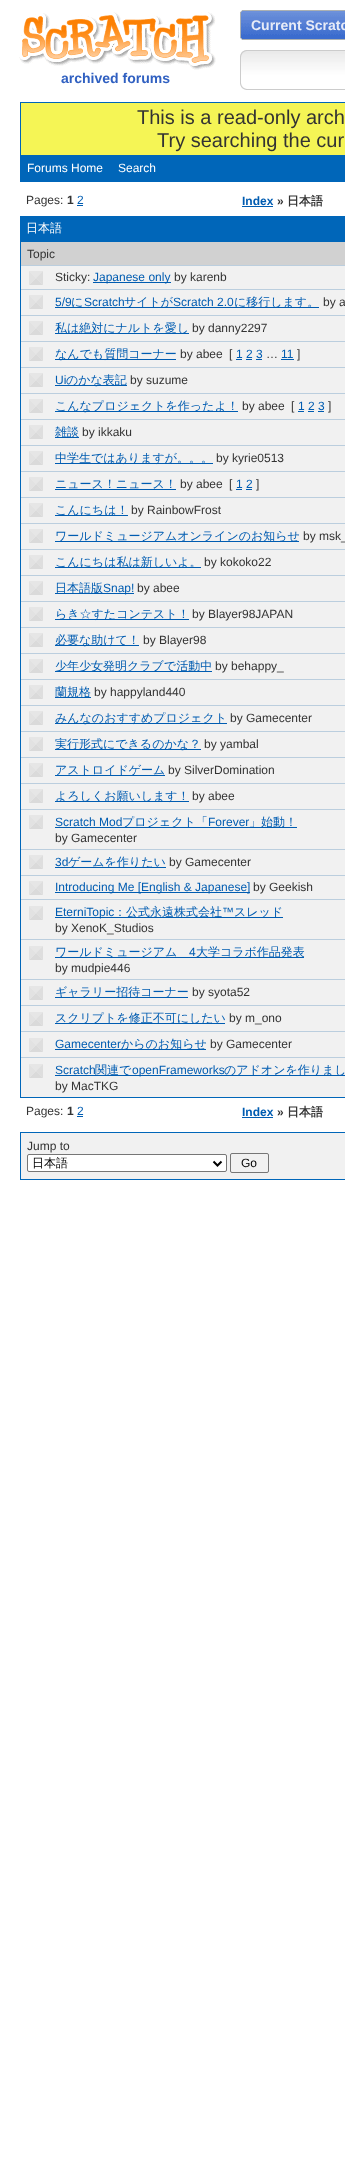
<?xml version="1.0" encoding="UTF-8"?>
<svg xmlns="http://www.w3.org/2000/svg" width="345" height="2175">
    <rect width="100%" height="100%" fill="#FFFFFF"/>
    <image x="240" y="10" width="105" height="30" href="img_01.png"/>
    <text x="251" y="30" font-family="Liberation Sans" font-size="14" font-weight="700" fill="#E7EBF7">Current Scratc</text>
    <image x="19" y="12" width="197" height="58" href="img_02.png"/>
    <text x="61" y="83" font-family="Liberation Sans" font-size="14" font-weight="700" fill="#3060C1">archived forums</text>
    <image x="240" y="50" width="105" height="40" href="img_03.png"/>
    <rect x="20.5" y="102.5" width="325" height="79" fill="none" stroke="#0066B9"/>
    <rect x="21" y="103" width="324" height="52" fill="#F5F555"/>
    <text x="137" y="124" font-family="Liberation Sans" font-size="20" fill="#333333">This is a read-only arch</text>
    <text x="157" y="147" font-family="Liberation Sans" font-size="20" fill="#333333">Try searching the cur</text>
    <rect x="21" y="155" width="324" height="26" fill="#0066B9"/>
    <text x="27" y="172" font-family="Liberation Sans" font-size="12" fill="#FFFFFF">Forums Home</text>
    <text x="118" y="172" font-family="Liberation Sans" font-size="12" fill="#FFFFFF">Search</text>
    <text x="26" y="204" font-family="Liberation Sans" font-size="12" fill="#333333">Pages:</text>
    <text x="67" y="204" font-family="Liberation Sans" font-size="12" font-weight="700" fill="#333333">1</text>
    <text x="77" y="204" font-family="Liberation Sans" font-size="12" fill="#005CB1">2</text>
    <rect x="77" y="205" width="6" height="1" fill="#005CB1"/>
    <text x="242" y="205" font-family="Liberation Sans" font-size="12" font-weight="700" fill="#005CB1">Index</text>
    <rect x="242" y="206" width="31" height="1" fill="#005CB1"/>
    <text x="277" y="205" font-family="Liberation Sans" font-size="12" font-weight="700" fill="#333333">»</text>
    <text x="287" y="205" font-family="WenQuanYi Zen Hei" font-size="12" font-weight="700" fill="#333333">日本語</text>
    <rect x="20" y="216" width="325" height="25" fill="#0066B9"/>
    <text x="26" y="232" font-family="WenQuanYi Zen Hei" font-size="12" font-weight="500" fill="#FFFFFF">日本語</text>
    <rect x="21" y="266" width="324" height="831" fill="#F1F1F1"/>
    <rect x="20.5" y="241.5" width="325" height="856" fill="none" stroke="#0066B9"/>
    <rect x="21" y="242" width="324" height="23" fill="#D1D1D1"/>
    <text x="27" y="258" font-family="Liberation Sans" font-size="12" fill="#333333">Topic</text>
    <rect x="21" y="265" width="324" height="1" fill="#BBCEDE"/>
    <path d="M 29 271 H 43 L 36 278 Z" fill="#E6E6E6"/>
    <path d="M 43 271 V 285 L 36 278 Z" fill="#DEDEDE"/>
    <path d="M 43 285 H 29 L 36 278 Z" fill="#DADADA"/>
    <path d="M 29 285 V 271 L 36 278 Z" fill="#E2E2E2"/>
    <text x="55" y="281" font-family="Liberation Sans" font-size="12" fill="#333333">Sticky:</text>
    <rect x="93" y="282" width="78" height="1" fill="#005CB1"/>
    <text x="93" y="281" font-family="Liberation Sans" font-size="12" fill="#005CB1">Japanese only</text>
    <text x="174" y="281" font-family="Liberation Sans" font-size="12" fill="#333333">by karenb</text>
    <rect x="21" y="289" width="324" height="1" fill="#BBCEDE"/>
    <path d="M 29 295 H 43 L 36 302 Z" fill="#E6E6E6"/>
    <path d="M 43 295 V 309 L 36 302 Z" fill="#DEDEDE"/>
    <path d="M 43 309 H 29 L 36 302 Z" fill="#DADADA"/>
    <path d="M 29 309 V 295 L 36 302 Z" fill="#E2E2E2"/>
    <text x="55" y="306" font-family="Liberation Sans" font-size="12" fill="#005CB1">5/9</text>
    <rect x="55" y="307" width="264" height="1" fill="#005CB1"/>
    <text x="71" y="306" font-family="WenQuanYi Zen Hei" font-size="12" font-weight="500" fill="#005CB1">に</text>
    <text x="84" y="306" font-family="Liberation Sans" font-size="12" fill="#005CB1">Scratch</text>
    <text x="124" y="306" font-family="WenQuanYi Zen Hei" font-size="12" font-weight="500" fill="#005CB1">サイトが</text>
    <text x="173" y="306" font-family="Liberation Sans" font-size="12" fill="#005CB1">Scratch 2.0</text>
    <text x="234" y="306" font-family="WenQuanYi Zen Hei" font-size="12" font-weight="500" fill="#005CB1">に移行します。</text>
    <text x="323" y="306" font-family="Liberation Sans" font-size="12" fill="#333333">by a</text>
    <rect x="21" y="315" width="324" height="1" fill="#BBCEDE"/>
    <path d="M 29 321 H 43 L 36 328 Z" fill="#E6E6E6"/>
    <path d="M 43 321 V 335 L 36 328 Z" fill="#DEDEDE"/>
    <path d="M 43 335 H 29 L 36 328 Z" fill="#DADADA"/>
    <path d="M 29 335 V 321 L 36 328 Z" fill="#E2E2E2"/>
    <rect x="55" y="333" width="134" height="1" fill="#005CB1"/>
    <text x="55" y="332" font-family="WenQuanYi Zen Hei" font-size="12" font-weight="500" fill="#005CB1">私は絶対にナルトを愛し</text>
    <text x="192" y="332" font-family="Liberation Sans" font-size="12" fill="#333333">by danny2297</text>
    <rect x="21" y="341" width="324" height="1" fill="#BBCEDE"/>
    <path d="M 29 347 H 43 L 36 354 Z" fill="#E6E6E6"/>
    <path d="M 43 347 V 361 L 36 354 Z" fill="#DEDEDE"/>
    <path d="M 43 361 H 29 L 36 354 Z" fill="#DADADA"/>
    <path d="M 29 361 V 347 L 36 354 Z" fill="#E2E2E2"/>
    <rect x="55" y="359" width="121" height="1" fill="#005CB1"/>
    <text x="55" y="358" font-family="WenQuanYi Zen Hei" font-size="12" font-weight="500" fill="#005CB1">なんでも質問コーナー</text>
    <text x="180" y="358" font-family="Liberation Sans" font-size="12" fill="#333333">by abee</text>
    <text x="229" y="358" font-family="Liberation Sans" font-size="12" fill="#333333">[</text>
    <text x="236" y="358" font-family="Liberation Sans" font-size="12" fill="#005CB1">1 2 3</text>
    <rect x="236" y="359" width="6" height="1" fill="#005CB1"/>
    <text x="266" y="358" font-family="Liberation Sans" font-size="12" fill="#333333">…</text>
    <text x="281" y="358" font-family="Liberation Sans" font-size="12" fill="#005CB1">11</text>
    <rect x="281" y="359" width="13" height="1" fill="#005CB1"/>
    <text x="297" y="358" font-family="Liberation Sans" font-size="12" fill="#333333">]</text>
    <rect x="246" y="359" width="6" height="1" fill="#005CB1"/>
    <rect x="256" y="359" width="6" height="1" fill="#005CB1"/>
    <rect x="21" y="367" width="324" height="1" fill="#BBCEDE"/>
    <path d="M 29 373 H 43 L 36 380 Z" fill="#E6E6E6"/>
    <path d="M 43 373 V 387 L 36 380 Z" fill="#DEDEDE"/>
    <path d="M 43 387 H 29 L 36 380 Z" fill="#DADADA"/>
    <path d="M 29 387 V 373 L 36 380 Z" fill="#E2E2E2"/>
    <text x="55" y="384" font-family="Liberation Sans" font-size="12" fill="#005CB1">Ui</text>
    <rect x="55" y="385" width="72" height="1" fill="#005CB1"/>
    <text x="66" y="384" font-family="WenQuanYi Zen Hei" font-size="12" font-weight="500" fill="#005CB1">のかな表記</text>
    <text x="130" y="384" font-family="Liberation Sans" font-size="12" fill="#333333">by suzume</text>
    <rect x="21" y="393" width="324" height="1" fill="#BBCEDE"/>
    <path d="M 29 399 H 43 L 36 406 Z" fill="#E6E6E6"/>
    <path d="M 43 399 V 413 L 36 406 Z" fill="#DEDEDE"/>
    <path d="M 43 413 H 29 L 36 406 Z" fill="#DADADA"/>
    <path d="M 29 413 V 399 L 36 406 Z" fill="#E2E2E2"/>
    <rect x="55" y="411" width="183" height="1" fill="#005CB1"/>
    <text x="55" y="410" font-family="WenQuanYi Zen Hei" font-size="12" font-weight="500" fill="#005CB1">こんなプロジェクトを作ったよ！</text>
    <text x="242" y="410" font-family="Liberation Sans" font-size="12" fill="#333333">by abee</text>
    <text x="291" y="410" font-family="Liberation Sans" font-size="12" fill="#333333">[</text>
    <text x="298" y="410" font-family="Liberation Sans" font-size="12" fill="#005CB1">1 2 3</text>
    <rect x="298" y="411" width="6" height="1" fill="#005CB1"/>
    <text x="328" y="410" font-family="Liberation Sans" font-size="12" fill="#333333">]</text>
    <rect x="308" y="411" width="6" height="1" fill="#005CB1"/>
    <rect x="318" y="411" width="6" height="1" fill="#005CB1"/>
    <rect x="21" y="419" width="324" height="1" fill="#BBCEDE"/>
    <path d="M 29 425 H 43 L 36 432 Z" fill="#E6E6E6"/>
    <path d="M 43 425 V 439 L 36 432 Z" fill="#DEDEDE"/>
    <path d="M 43 439 H 29 L 36 432 Z" fill="#DADADA"/>
    <path d="M 29 439 V 425 L 36 432 Z" fill="#E2E2E2"/>
    <rect x="55" y="437" width="24" height="1" fill="#005CB1"/>
    <text x="55" y="436" font-family="WenQuanYi Zen Hei" font-size="12" font-weight="500" fill="#005CB1">雑談</text>
    <text x="82" y="436" font-family="Liberation Sans" font-size="12" fill="#333333">by ikkaku</text>
    <rect x="21" y="445" width="324" height="1" fill="#BBCEDE"/>
    <path d="M 29 451 H 43 L 36 458 Z" fill="#E6E6E6"/>
    <path d="M 43 451 V 465 L 36 458 Z" fill="#DEDEDE"/>
    <path d="M 43 465 H 29 L 36 458 Z" fill="#DADADA"/>
    <path d="M 29 465 V 451 L 36 458 Z" fill="#E2E2E2"/>
    <rect x="55" y="463" width="158" height="1" fill="#005CB1"/>
    <text x="55" y="462" font-family="WenQuanYi Zen Hei" font-size="12" font-weight="500" fill="#005CB1">中学生ではありますが。。。</text>
    <text x="216" y="462" font-family="Liberation Sans" font-size="12" fill="#333333">by kyrie0513</text>
    <rect x="21" y="471" width="324" height="1" fill="#BBCEDE"/>
    <path d="M 29 477 H 43 L 36 484 Z" fill="#E6E6E6"/>
    <path d="M 43 477 V 491 L 36 484 Z" fill="#DEDEDE"/>
    <path d="M 43 491 H 29 L 36 484 Z" fill="#DADADA"/>
    <path d="M 29 491 V 477 L 36 484 Z" fill="#E2E2E2"/>
    <text x="55" y="488" font-family="WenQuanYi Zen Hei" font-size="12" font-weight="500" fill="#005CB1">ニュース！ニュース！</text>
    <rect x="55" y="489" width="121" height="1" fill="#005CB1"/>
    <text x="180" y="488" font-family="Liberation Sans" font-size="12" fill="#333333">by abee</text>
    <text x="229" y="488" font-family="Liberation Sans" font-size="12" fill="#333333">[</text>
    <text x="236" y="488" font-family="Liberation Sans" font-size="12" fill="#005CB1">1 2</text>
    <rect x="236" y="489" width="6" height="1" fill="#005CB1"/>
    <text x="256" y="488" font-family="Liberation Sans" font-size="12" fill="#333333">]</text>
    <rect x="246" y="489" width="6" height="1" fill="#005CB1"/>
    <rect x="21" y="497" width="324" height="1" fill="#BBCEDE"/>
    <path d="M 29 503 H 43 L 36 510 Z" fill="#E6E6E6"/>
    <path d="M 43 503 V 517 L 36 510 Z" fill="#DEDEDE"/>
    <path d="M 43 517 H 29 L 36 510 Z" fill="#DADADA"/>
    <path d="M 29 517 V 503 L 36 510 Z" fill="#E2E2E2"/>
    <rect x="55" y="515" width="73" height="1" fill="#005CB1"/>
    <text x="55" y="514" font-family="WenQuanYi Zen Hei" font-size="12" font-weight="500" fill="#005CB1">こんにちは！</text>
    <text x="131" y="514" font-family="Liberation Sans" font-size="12" fill="#333333">by RainbowFrost</text>
    <rect x="21" y="523" width="324" height="1" fill="#BBCEDE"/>
    <path d="M 29 529 H 43 L 36 536 Z" fill="#E6E6E6"/>
    <path d="M 43 529 V 543 L 36 536 Z" fill="#DEDEDE"/>
    <path d="M 43 543 H 29 L 36 536 Z" fill="#DADADA"/>
    <path d="M 29 543 V 529 L 36 536 Z" fill="#E2E2E2"/>
    <rect x="55" y="541" width="244" height="1" fill="#005CB1"/>
    <text x="55" y="540" font-family="WenQuanYi Zen Hei" font-size="12" font-weight="500" fill="#005CB1">ワールドミュージアムオンラインのお知らせ</text>
    <text x="303" y="540" font-family="Liberation Sans" font-size="12" fill="#333333">by msk_</text>
    <rect x="21" y="549" width="324" height="1" fill="#BBCEDE"/>
    <path d="M 29 555 H 43 L 36 562 Z" fill="#E6E6E6"/>
    <path d="M 43 555 V 569 L 36 562 Z" fill="#DEDEDE"/>
    <path d="M 43 569 H 29 L 36 562 Z" fill="#DADADA"/>
    <path d="M 29 569 V 555 L 36 562 Z" fill="#E2E2E2"/>
    <rect x="55" y="567" width="146" height="1" fill="#005CB1"/>
    <text x="55" y="566" font-family="WenQuanYi Zen Hei" font-size="12" font-weight="500" fill="#005CB1">こんにちは私は新しいよ。</text>
    <text x="204" y="566" font-family="Liberation Sans" font-size="12" fill="#333333">by kokoko22</text>
    <rect x="21" y="575" width="324" height="1" fill="#BBCEDE"/>
    <path d="M 29 581 H 43 L 36 588 Z" fill="#E6E6E6"/>
    <path d="M 43 581 V 595 L 36 588 Z" fill="#DEDEDE"/>
    <path d="M 43 595 H 29 L 36 588 Z" fill="#DADADA"/>
    <path d="M 29 595 V 581 L 36 588 Z" fill="#E2E2E2"/>
    <rect x="55" y="593" width="79" height="1" fill="#005CB1"/>
    <text x="55" y="592" font-family="WenQuanYi Zen Hei" font-size="12" font-weight="500" fill="#005CB1">日本語版</text>
    <text x="103" y="592" font-family="Liberation Sans" font-size="12" fill="#005CB1">Snap!</text>
    <text x="137" y="592" font-family="Liberation Sans" font-size="12" fill="#333333">by abee</text>
    <rect x="21" y="601" width="324" height="1" fill="#BBCEDE"/>
    <path d="M 29 607 H 43 L 36 614 Z" fill="#E6E6E6"/>
    <path d="M 43 607 V 621 L 36 614 Z" fill="#DEDEDE"/>
    <path d="M 43 621 H 29 L 36 614 Z" fill="#DADADA"/>
    <path d="M 29 621 V 607 L 36 614 Z" fill="#E2E2E2"/>
    <rect x="55" y="619" width="134" height="1" fill="#005CB1"/>
    <text x="55" y="618" font-family="WenQuanYi Zen Hei" font-size="12" font-weight="500" fill="#005CB1">らき☆すたコンテスト！</text>
    <text x="192" y="618" font-family="Liberation Sans" font-size="12" fill="#333333">by Blayer98JAPAN</text>
    <rect x="21" y="627" width="324" height="1" fill="#BBCEDE"/>
    <path d="M 29 633 H 43 L 36 640 Z" fill="#E6E6E6"/>
    <path d="M 43 633 V 647 L 36 640 Z" fill="#DEDEDE"/>
    <path d="M 43 647 H 29 L 36 640 Z" fill="#DADADA"/>
    <path d="M 29 647 V 633 L 36 640 Z" fill="#E2E2E2"/>
    <rect x="55" y="645" width="84" height="1" fill="#005CB1"/>
    <text x="55" y="644" font-family="WenQuanYi Zen Hei" font-size="12" font-weight="500" fill="#005CB1">必要な助けて！</text>
    <text x="143" y="644" font-family="Liberation Sans" font-size="12" fill="#333333">by Blayer98</text>
    <rect x="21" y="653" width="324" height="1" fill="#BBCEDE"/>
    <path d="M 29 659 H 43 L 36 666 Z" fill="#E6E6E6"/>
    <path d="M 43 659 V 673 L 36 666 Z" fill="#DEDEDE"/>
    <path d="M 43 673 H 29 L 36 666 Z" fill="#DADADA"/>
    <path d="M 29 673 V 659 L 36 666 Z" fill="#E2E2E2"/>
    <rect x="55" y="671" width="157" height="1" fill="#005CB1"/>
    <text x="55" y="670" font-family="WenQuanYi Zen Hei" font-size="12" font-weight="500" fill="#005CB1">少年少女発明クラブで活動中</text>
    <text x="215" y="670" font-family="Liberation Sans" font-size="12" fill="#333333">by behappy_</text>
    <rect x="21" y="679" width="324" height="1" fill="#BBCEDE"/>
    <path d="M 29 685 H 43 L 36 692 Z" fill="#E6E6E6"/>
    <path d="M 43 685 V 699 L 36 692 Z" fill="#DEDEDE"/>
    <path d="M 43 699 H 29 L 36 692 Z" fill="#DADADA"/>
    <path d="M 29 699 V 685 L 36 692 Z" fill="#E2E2E2"/>
    <rect x="55" y="697" width="36" height="1" fill="#005CB1"/>
    <text x="55" y="696" font-family="WenQuanYi Zen Hei" font-size="12" font-weight="500" fill="#005CB1">蘭規格</text>
    <text x="94" y="696" font-family="Liberation Sans" font-size="12" fill="#333333">by happyland440</text>
    <rect x="21" y="705" width="324" height="1" fill="#BBCEDE"/>
    <path d="M 29 711 H 43 L 36 718 Z" fill="#E6E6E6"/>
    <path d="M 43 711 V 725 L 36 718 Z" fill="#DEDEDE"/>
    <path d="M 43 725 H 29 L 36 718 Z" fill="#DADADA"/>
    <path d="M 29 725 V 711 L 36 718 Z" fill="#E2E2E2"/>
    <rect x="55" y="723" width="172" height="1" fill="#005CB1"/>
    <text x="55" y="722" font-family="WenQuanYi Zen Hei" font-size="12" font-weight="500" fill="#005CB1">みんなのおすすめプロジェクト</text>
    <text x="230" y="722" font-family="Liberation Sans" font-size="12" fill="#333333">by Gamecenter</text>
    <rect x="21" y="731" width="324" height="1" fill="#BBCEDE"/>
    <path d="M 29 737 H 43 L 36 744 Z" fill="#E6E6E6"/>
    <path d="M 43 737 V 751 L 36 744 Z" fill="#DEDEDE"/>
    <path d="M 43 751 H 29 L 36 744 Z" fill="#DADADA"/>
    <path d="M 29 751 V 737 L 36 744 Z" fill="#E2E2E2"/>
    <rect x="55" y="749" width="146" height="1" fill="#005CB1"/>
    <text x="55" y="748" font-family="WenQuanYi Zen Hei" font-size="12" font-weight="500" fill="#005CB1">実行形式にできるのかな？</text>
    <text x="204" y="748" font-family="Liberation Sans" font-size="12" fill="#333333">by yambal</text>
    <rect x="21" y="757" width="324" height="1" fill="#BBCEDE"/>
    <path d="M 29 763 H 43 L 36 770 Z" fill="#E6E6E6"/>
    <path d="M 43 763 V 777 L 36 770 Z" fill="#DEDEDE"/>
    <path d="M 43 777 H 29 L 36 770 Z" fill="#DADADA"/>
    <path d="M 29 777 V 763 L 36 770 Z" fill="#E2E2E2"/>
    <rect x="55" y="775" width="110" height="1" fill="#005CB1"/>
    <text x="55" y="774" font-family="WenQuanYi Zen Hei" font-size="12" font-weight="500" fill="#005CB1">アストロイドゲーム</text>
    <text x="168" y="774" font-family="Liberation Sans" font-size="12" fill="#333333">by SilverDomination</text>
    <rect x="21" y="783" width="324" height="1" fill="#BBCEDE"/>
    <path d="M 29 789 H 43 L 36 796 Z" fill="#E6E6E6"/>
    <path d="M 43 789 V 803 L 36 796 Z" fill="#DEDEDE"/>
    <path d="M 43 803 H 29 L 36 796 Z" fill="#DADADA"/>
    <path d="M 29 803 V 789 L 36 796 Z" fill="#E2E2E2"/>
    <rect x="55" y="801" width="134" height="1" fill="#005CB1"/>
    <text x="55" y="800" font-family="WenQuanYi Zen Hei" font-size="12" font-weight="500" fill="#005CB1">よろしくお願いします！</text>
    <text x="192" y="800" font-family="Liberation Sans" font-size="12" fill="#333333">by abee</text>
    <rect x="21" y="809" width="324" height="1" fill="#BBCEDE"/>
    <path d="M 29 815 H 43 L 36 822 Z" fill="#E6E6E6"/>
    <path d="M 43 815 V 829 L 36 822 Z" fill="#DEDEDE"/>
    <path d="M 43 829 H 29 L 36 822 Z" fill="#DADADA"/>
    <path d="M 29 829 V 815 L 36 822 Z" fill="#E2E2E2"/>
    <text x="55" y="826" font-family="Liberation Sans" font-size="12" fill="#005CB1">Scratch Mod</text>
    <rect x="55" y="827" width="242" height="1" fill="#005CB1"/>
    <text x="122" y="826" font-family="WenQuanYi Zen Hei" font-size="12" font-weight="500" fill="#005CB1">プロジェクト「</text>
    <text x="208" y="826" font-family="Liberation Sans" font-size="12" fill="#005CB1">Forever</text>
    <text x="249" y="826" font-family="WenQuanYi Zen Hei" font-size="12" font-weight="500" fill="#005CB1">」始動！</text>
    <text x="55" y="842" font-family="Liberation Sans" font-size="12" fill="#333333">by Gamecenter</text>
    <rect x="21" y="849" width="324" height="1" fill="#BBCEDE"/>
    <path d="M 29 855 H 43 L 36 862 Z" fill="#E6E6E6"/>
    <path d="M 43 855 V 869 L 36 862 Z" fill="#DEDEDE"/>
    <path d="M 43 869 H 29 L 36 862 Z" fill="#DADADA"/>
    <path d="M 29 869 V 855 L 36 862 Z" fill="#E2E2E2"/>
    <text x="55" y="866" font-family="Liberation Sans" font-size="12" fill="#005CB1">3d</text>
    <rect x="55" y="867" width="111" height="1" fill="#005CB1"/>
    <text x="68" y="866" font-family="WenQuanYi Zen Hei" font-size="12" font-weight="500" fill="#005CB1">ゲームを作りたい</text>
    <text x="169" y="866" font-family="Liberation Sans" font-size="12" fill="#333333">by Gamecenter</text>
    <rect x="21" y="875" width="324" height="1" fill="#BBCEDE"/>
    <path d="M 29 881 H 43 L 36 888 Z" fill="#E6E6E6"/>
    <path d="M 43 881 V 895 L 36 888 Z" fill="#DEDEDE"/>
    <path d="M 43 895 H 29 L 36 888 Z" fill="#DADADA"/>
    <path d="M 29 895 V 881 L 36 888 Z" fill="#E2E2E2"/>
    <rect x="55" y="892" width="195" height="1" fill="#005CB1"/>
    <text x="55" y="891" font-family="Liberation Sans" font-size="12" fill="#005CB1">Introducing Me [English &amp; Japanese]</text>
    <text x="253" y="891" font-family="Liberation Sans" font-size="12" fill="#333333">by Geekish</text>
    <rect x="21" y="899" width="324" height="1" fill="#BBCEDE"/>
    <path d="M 29 906 H 43 L 36 913 Z" fill="#E6E6E6"/>
    <path d="M 43 906 V 920 L 36 913 Z" fill="#DEDEDE"/>
    <path d="M 43 920 H 29 L 36 913 Z" fill="#DADADA"/>
    <path d="M 29 920 V 906 L 36 913 Z" fill="#E2E2E2"/>
    <rect x="55" y="917" width="228" height="1" fill="#005CB1"/>
    <text x="55" y="916" font-family="Liberation Sans" font-size="12" fill="#005CB1">EterniTopic</text>
    <text x="114" y="916" font-family="WenQuanYi Zen Hei" font-size="12" font-weight="500" fill="#005CB1">：公式永遠株式会社</text>
    <text x="222" y="916" font-family="Liberation Sans" font-size="12" fill="#005CB1">™</text>
    <text x="234" y="916" font-family="WenQuanYi Zen Hei" font-size="12" font-weight="500" fill="#005CB1">スレッド</text>
    <text x="55" y="932" font-family="Liberation Sans" font-size="12" fill="#333333">by XenoK_Studios</text>
    <rect x="21" y="939" width="324" height="1" fill="#BBCEDE"/>
    <path d="M 29 946 H 43 L 36 953 Z" fill="#E6E6E6"/>
    <path d="M 43 946 V 960 L 36 953 Z" fill="#DEDEDE"/>
    <path d="M 43 960 H 29 L 36 953 Z" fill="#DADADA"/>
    <path d="M 29 960 V 946 L 36 953 Z" fill="#E2E2E2"/>
    <rect x="55" y="957" width="249" height="1" fill="#005CB1"/>
    <text x="55" y="956" font-family="WenQuanYi Zen Hei" font-size="12" font-weight="500" fill="#005CB1">ワールドミュージアム</text>
    <text x="189" y="956" font-family="Liberation Sans" font-size="12" fill="#005CB1">4</text>
    <text x="196" y="956" font-family="WenQuanYi Zen Hei" font-size="12" font-weight="500" fill="#005CB1">大学コラボ作品発表</text>
    <text x="55" y="972" font-family="Liberation Sans" font-size="12" fill="#333333">by mudpie446</text>
    <rect x="21" y="979" width="324" height="1" fill="#BBCEDE"/>
    <path d="M 29 986 H 43 L 36 993 Z" fill="#E6E6E6"/>
    <path d="M 43 986 V 1000 L 36 993 Z" fill="#DEDEDE"/>
    <path d="M 43 1000 H 29 L 36 993 Z" fill="#DADADA"/>
    <path d="M 29 1000 V 986 L 36 993 Z" fill="#E2E2E2"/>
    <rect x="55" y="997" width="133" height="1" fill="#005CB1"/>
    <text x="55" y="996" font-family="WenQuanYi Zen Hei" font-size="12" font-weight="500" fill="#005CB1">ギャラリー招待コーナー</text>
    <text x="192" y="996" font-family="Liberation Sans" font-size="12" fill="#333333">by syota52</text>
    <rect x="21" y="1005" width="324" height="1" fill="#BBCEDE"/>
    <path d="M 29 1012 H 43 L 36 1019 Z" fill="#E6E6E6"/>
    <path d="M 43 1012 V 1026 L 36 1019 Z" fill="#DEDEDE"/>
    <path d="M 43 1026 H 29 L 36 1019 Z" fill="#DADADA"/>
    <path d="M 29 1026 V 1012 L 36 1019 Z" fill="#E2E2E2"/>
    <rect x="55" y="1023" width="170" height="1" fill="#005CB1"/>
    <text x="55" y="1022" font-family="WenQuanYi Zen Hei" font-size="12" font-weight="500" fill="#005CB1">スクリプトを修正不可にしたい</text>
    <text x="229" y="1022" font-family="Liberation Sans" font-size="12" fill="#333333">by m_ono</text>
    <rect x="21" y="1031" width="324" height="1" fill="#BBCEDE"/>
    <path d="M 29 1038 H 43 L 36 1045 Z" fill="#E6E6E6"/>
    <path d="M 43 1038 V 1052 L 36 1045 Z" fill="#DEDEDE"/>
    <path d="M 43 1052 H 29 L 36 1045 Z" fill="#DADADA"/>
    <path d="M 29 1052 V 1038 L 36 1045 Z" fill="#E2E2E2"/>
    <text x="55" y="1048" font-family="Liberation Sans" font-size="12" fill="#005CB1">Gamecenter</text>
    <rect x="55" y="1049" width="151" height="1" fill="#005CB1"/>
    <text x="121" y="1048" font-family="WenQuanYi Zen Hei" font-size="12" font-weight="500" fill="#005CB1">からのお知らせ</text>
    <text x="210" y="1048" font-family="Liberation Sans" font-size="12" fill="#333333">by Gamecenter</text>
    <rect x="21" y="1057" width="324" height="1" fill="#BBCEDE"/>
    <path d="M 29 1064 H 43 L 36 1071 Z" fill="#E6E6E6"/>
    <path d="M 43 1064 V 1078 L 36 1071 Z" fill="#DEDEDE"/>
    <path d="M 43 1078 H 29 L 36 1071 Z" fill="#DADADA"/>
    <path d="M 29 1078 V 1064 L 36 1071 Z" fill="#E2E2E2"/>
    <text x="55" y="1074" font-family="Liberation Sans" font-size="12" fill="#005CB1">Scratch</text>
    <rect x="55" y="1075" width="290" height="1" fill="#005CB1"/>
    <text x="95" y="1074" font-family="WenQuanYi Zen Hei" font-size="12" font-weight="500" fill="#005CB1">関連で</text>
    <text x="132" y="1074" font-family="Liberation Sans" font-size="12" fill="#005CB1">openFrameworks</text>
    <text x="224" y="1074" font-family="WenQuanYi Zen Hei" font-size="12" font-weight="500" fill="#005CB1">のアドオンを作りまし</text>
    <text x="55" y="1090" font-family="Liberation Sans" font-size="12" fill="#333333">by MacTKG</text>
    <text x="26" y="1115" font-family="Liberation Sans" font-size="12" fill="#333333">Pages:</text>
    <text x="67" y="1115" font-family="Liberation Sans" font-size="12" font-weight="700" fill="#333333">1</text>
    <text x="77" y="1115" font-family="Liberation Sans" font-size="12" fill="#005CB1">2</text>
    <rect x="77" y="1116" width="6" height="1" fill="#005CB1"/>
    <text x="242" y="1116" font-family="Liberation Sans" font-size="12" font-weight="700" fill="#005CB1">Index</text>
    <rect x="242" y="1117" width="31" height="1" fill="#005CB1"/>
    <text x="277" y="1116" font-family="Liberation Sans" font-size="12" font-weight="700" fill="#333333">»</text>
    <text x="287" y="1116" font-family="WenQuanYi Zen Hei" font-size="12" font-weight="700" fill="#333333">日本語</text>
    <rect x="20.5" y="1132.5" width="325" height="47" fill="#F1F1F1" stroke="#0066B9"/>
    <text x="27" y="1150" font-family="Liberation Sans" font-size="12" fill="#333333">Jump to</text>
    <rect x="27.5" y="1154.5" width="199" height="17" rx="1.5" fill="#FFFFFF" stroke="#767676"/>
    <path d="M 213.5 1161.5 L 217.5 1165.5 L 221.5 1161.5" fill="none" stroke="#000000" stroke-width="2"/>
    <text x="32" y="1167" font-family="WenQuanYi Zen Hei" font-size="12" font-weight="500" fill="#000000">日本語</text>
    <rect x="230.5" y="1153.5" width="38" height="19" rx="1.5" fill="none" stroke="#767676"/>
    <text x="241" y="1167" font-family="Liberation Sans" font-size="12" fill="#000000">Go</text>
</svg>
